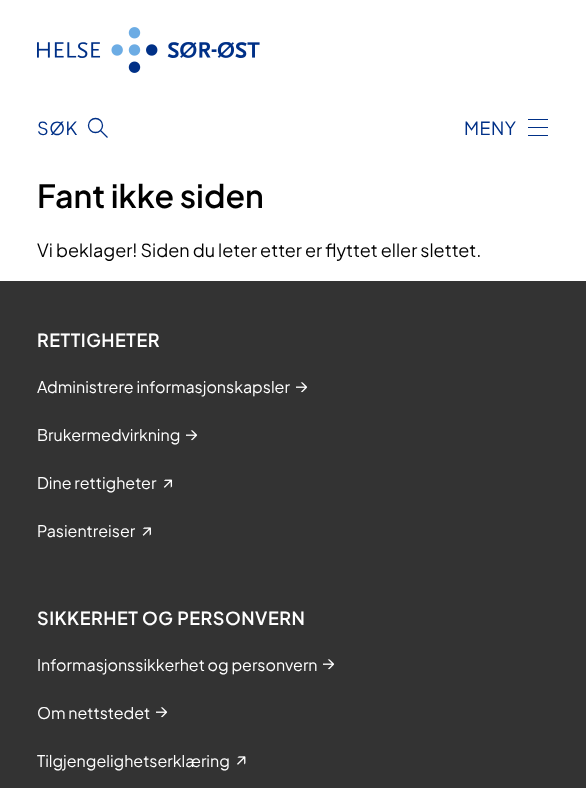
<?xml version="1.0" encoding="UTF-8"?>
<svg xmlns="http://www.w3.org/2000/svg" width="586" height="788">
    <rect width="100%" height="100%" fill="#FFFFFF"/>
    <image x="37" y="27" width="223" height="46" href="img_01.png"/>
    <text x="37" y="135" font-family="Plus Jakarta Sans" font-size="18" letter-spacing="0.5" fill="#003087">SØK</text>
    <circle cx="95.5" cy="125.5" r="7" fill="none" stroke="#003087" stroke-width="1.3"/>
    <path d="M 100.5 130.5 L 107.5 137.5" fill="none" stroke="#003087" stroke-width="1.3"/>
    <text x="464" y="135" font-family="Plus Jakarta Sans" font-size="18" letter-spacing="0.5" fill="#003087">MENY</text>
    <rect x="528" y="119" width="20" height="1" fill="#003087"/>
    <rect x="528" y="135" width="20" height="1" fill="#003087"/>
    <rect x="528" y="127" width="20" height="1" fill="#003087"/>
    <text x="37" y="208" font-family="Plus Jakarta Sans" font-size="32" font-weight="600" fill="#000000">Fant ikke siden</text>
    <text x="37" y="257" font-family="Plus Jakarta Sans" font-size="18" fill="#000000">Vi beklager! Siden du leter etter er flyttet eller slettet.</text>
    <rect x="0" y="281" width="586" height="507" fill="#333333"/>
    <text x="37" y="347" font-family="Plus Jakarta Sans" font-size="18" font-weight="600" letter-spacing="0.5" fill="#FFFFFF">RETTIGHETER</text>
    <text x="37" y="393" font-family="Plus Jakarta Sans" font-size="16" fill="#FFFFFF">Administrere informasjonskapsler</text>
    <image x="296" y="382" width="12" height="11" href="img_02.png"/>
    <text x="37" y="441" font-family="Plus Jakarta Sans" font-size="16" fill="#FFFFFF">Brukermedvirkning</text>
    <image x="186" y="430" width="12" height="11" href="img_02.png"/>
    <text x="37" y="489" font-family="Plus Jakarta Sans" font-size="16" fill="#FFFFFF">Dine rettigheter</text>
    <image x="163" y="479" width="10" height="9" href="img_03.png"/>
    <text x="37" y="537" font-family="Plus Jakarta Sans" font-size="16" fill="#FFFFFF">Pasientreiser</text>
    <image x="142" y="527" width="9" height="9" href="img_04.png"/>
    <text x="37" y="625" font-family="Plus Jakarta Sans" font-size="18" font-weight="600" letter-spacing="0.5" fill="#FFFFFF">SIKKERHET OG PERSONVERN</text>
    <text x="37" y="671" font-family="Plus Jakarta Sans" font-size="16" fill="#FFFFFF">Informasjonssikkerhet og personvern</text>
    <image x="323" y="659" width="12" height="11" href="img_02.png"/>
    <text x="37" y="719" font-family="Plus Jakarta Sans" font-size="16" fill="#FFFFFF">Om nettstedet</text>
    <image x="156" y="707" width="12" height="11" href="img_02.png"/>
    <text x="37" y="767" font-family="Plus Jakarta Sans" font-size="16" fill="#FFFFFF">Tilgjengelighetserklæring</text>
    <image x="237" y="756" width="9" height="9" href="img_05.png"/>
</svg>
